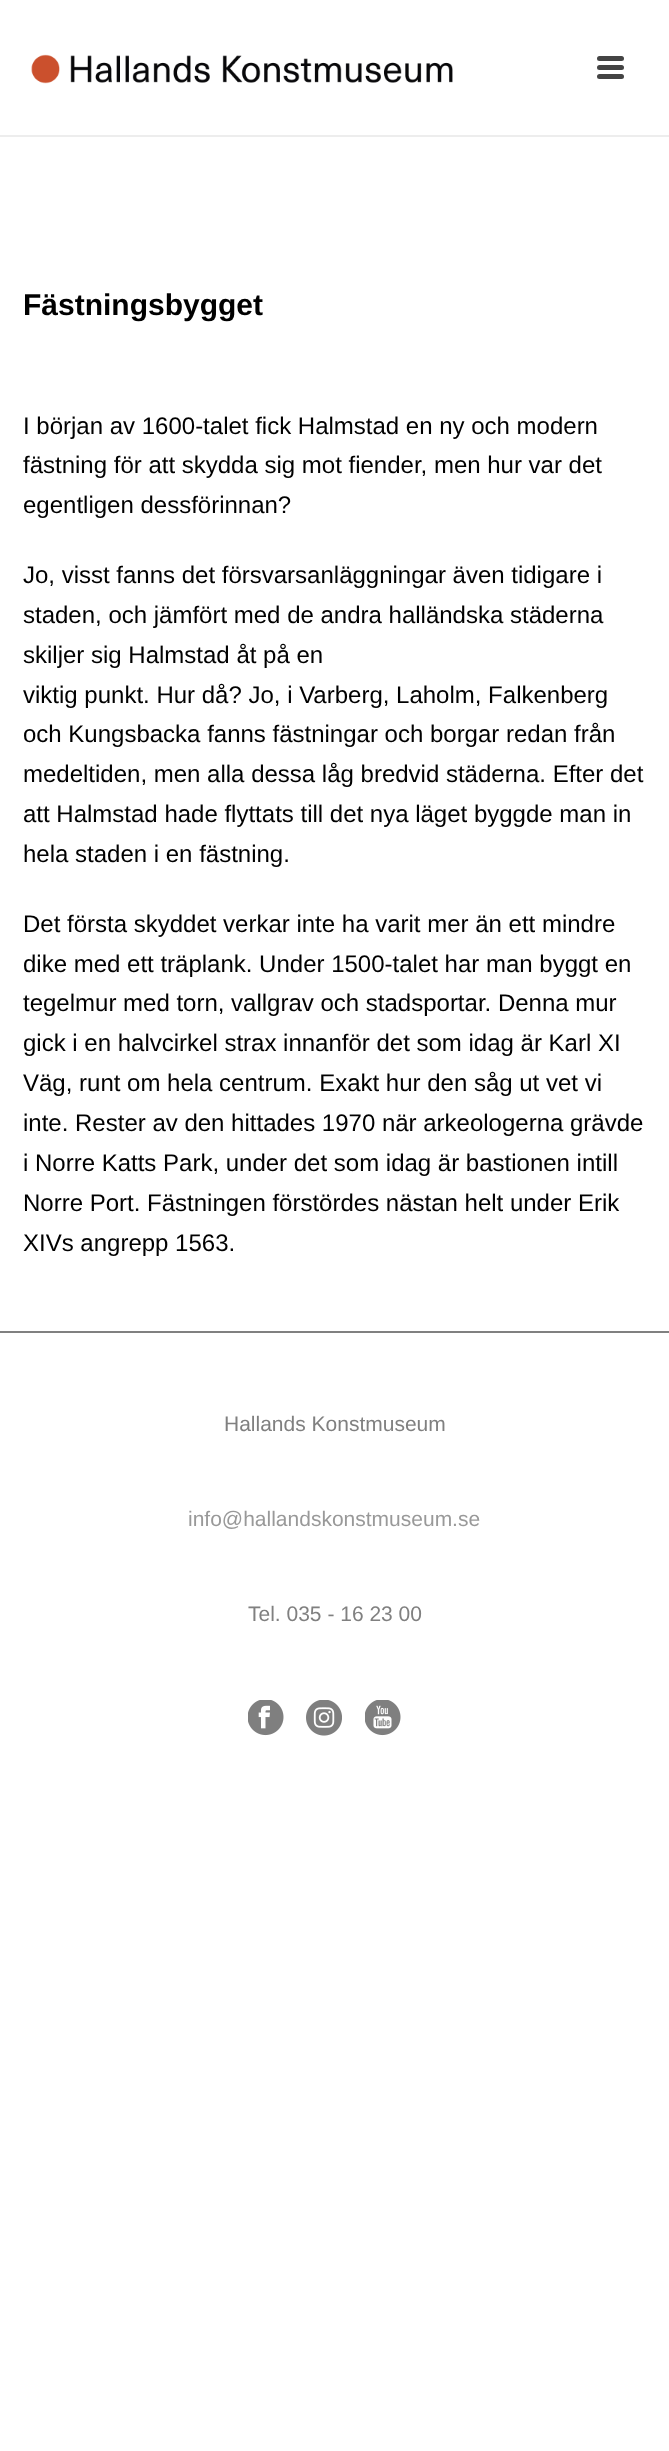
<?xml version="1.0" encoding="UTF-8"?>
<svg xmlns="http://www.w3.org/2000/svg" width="669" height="2451">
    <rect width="100%" height="100%" fill="#FFFFFF"/>
    <rect x="0" y="135" width="669" height="2" fill="#EDEDED"/>
    <image x="31" y="54" width="422" height="30" href="img_01.png"/>
    <rect x="597" y="56" width="27" height="5" rx="2.5" fill="#444444"/>
    <rect x="597" y="65" width="27" height="5" rx="2.5" fill="#444444"/>
    <rect x="597" y="74" width="27" height="5" rx="2.5" fill="#444444"/>
    <text x="23" y="315" font-family="Liberation Sans" font-size="30" font-weight="700" fill="#000000">Fästningsbygget</text>
    <text font-family="Liberation Sans" font-size="24" fill="#000000">
        <tspan x="23" y="434">I början av 1600-talet fick Halmstad en ny och modern</tspan>
        <tspan x="23" y="473">fästning för att skydda sig mot fiender, men hur var det</tspan>
        <tspan x="23" y="513">egentligen dessförinnan?</tspan>
    </text>
    <text font-family="Liberation Sans" font-size="24" fill="#000000">
        <tspan x="23" y="583">Jo, visst fanns det försvarsanläggningar även tidigare i</tspan>
        <tspan x="23" y="623">staden, och jämfört med de andra halländska städerna</tspan>
        <tspan x="23" y="663">skiljer sig Halmstad åt på en</tspan>
        <tspan x="23" y="703">viktig punkt. Hur då? Jo, i Varberg, Laholm, Falkenberg</tspan>
        <tspan x="23" y="742">och Kungsbacka fanns fästningar och borgar redan från</tspan>
        <tspan x="23" y="782">medeltiden, men alla dessa låg bredvid städerna. Efter det</tspan>
        <tspan x="23" y="822">att Halmstad hade flyttats till det nya läget byggde man in</tspan>
        <tspan x="23" y="862">hela staden i en fästning.</tspan>
    </text>
    <text font-family="Liberation Sans" font-size="24" fill="#000000">
        <tspan x="23" y="932">Det första skyddet verkar inte ha varit mer än ett mindre</tspan>
        <tspan x="23" y="972">dike med ett träplank. Under 1500-talet har man byggt en</tspan>
        <tspan x="23" y="1011">tegelmur med torn, vallgrav och stadsportar. Denna mur</tspan>
        <tspan x="23" y="1051">gick i en halvcirkel strax innanför det som idag är Karl XI</tspan>
        <tspan x="23" y="1091">Väg, runt om hela centrum. Exakt hur den såg ut vet vi</tspan>
        <tspan x="23" y="1131">inte. Rester av den hittades 1970 när arkeologerna grävde</tspan>
        <tspan x="23" y="1171">i Norre Katts Park, under det som idag är bastionen intill</tspan>
        <tspan x="23" y="1211">Norre Port. Fästningen förstördes nästan helt under Erik</tspan>
        <tspan x="23" y="1251">XIVs angrepp 1563.</tspan>
    </text>
    <rect x="0" y="1331" width="669" height="2" fill="#808080"/>
    <text x="224" y="1431" font-family="Liberation Sans" font-size="21" fill="#808080">Hallands Konstmuseum</text>
    <text x="188" y="1526" font-family="Liberation Sans" font-size="21" fill="#999999">info@hallandskonstmuseum.se</text>
    <text x="248" y="1621" font-family="Liberation Sans" font-size="21" fill="#808080">Tel. 035 - 16 23 00</text>
    <image x="248" y="1700" width="36" height="36" href="img_02.png"/>
    <image x="306" y="1700" width="36" height="36" href="img_03.png"/>
    <image x="365" y="1700" width="36" height="36" href="img_04.png"/>
</svg>
